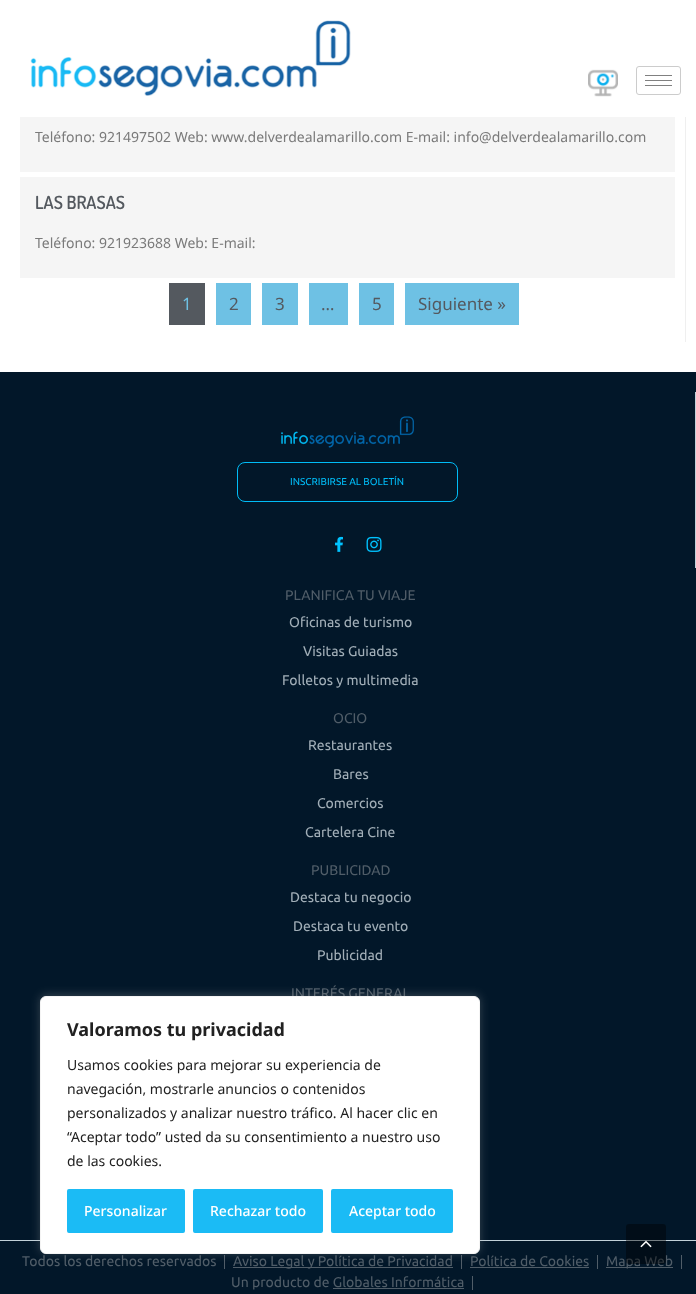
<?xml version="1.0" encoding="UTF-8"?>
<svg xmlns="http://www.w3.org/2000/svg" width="696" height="1294">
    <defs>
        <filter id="blur1" x="-50%" y="-200%" width="200%" height="500%"><feGaussianBlur stdDeviation="5"/></filter>
    </defs>
    <rect width="100%" height="100%" fill="#FFFFFF"/>
    <image x="30" y="20" width="321" height="76" href="img_01.png"/>
    <image x="588" y="69" width="30" height="28" href="img_02.png"/>
    <rect x="636.5" y="66.5" width="44" height="28" rx="2.5" fill="none" stroke="#CCCCCC"/>
    <rect x="645" y="75" width="27" height="1" fill="#808080"/>
    <rect x="645" y="80" width="27" height="1" fill="#808080"/>
    <rect x="645" y="85" width="27" height="1" fill="#808080"/>
    <rect x="685" y="117" width="1" height="225" fill="#EFEFEF"/>
    <rect x="20" y="117" width="655" height="55" fill="#F5F5F5"/>
    <text x="35" y="142" font-family="Noto Sans" font-size="14" fill="#7A7A7A">Teléfono: 921497502 Web: www.delverdealamarillo.com E-mail: info@delverdealamarillo.com</text>
    <rect x="20" y="177" width="655" height="101" fill="#F5F5F5"/>
    <text x="35" y="209" font-family="Dosis" font-size="18" font-weight="600" fill="#54595F">LAS BRASAS</text>
    <text x="35" y="248" font-family="Noto Sans" font-size="14" fill="#7A7A7A">Teléfono: 921923688 Web: E-mail:</text>
    <rect x="169" y="283" width="36" height="42" fill="#54595F"/>
    <text x="182" y="310" font-family="Noto Sans" font-size="17" fill="#6EC1E4">1</text>
    <rect x="216" y="283" width="35" height="42" fill="#6EC1E4"/>
    <text x="229" y="310" font-family="Noto Sans" font-size="17" fill="#54595F">2</text>
    <rect x="262" y="283" width="36" height="42" fill="#6EC1E4"/>
    <text x="275" y="310" font-family="Noto Sans" font-size="17" fill="#54595F">3</text>
    <rect x="309" y="283" width="39" height="42" fill="#6EC1E4"/>
    <text x="321" y="310" font-family="Noto Sans" font-size="17" fill="#54595F">…</text>
    <rect x="359" y="283" width="35" height="42" fill="#6EC1E4"/>
    <text x="372" y="310" font-family="Noto Sans" font-size="17" fill="#54595F">5</text>
    <rect x="405" y="283" width="114" height="42" fill="#6EC1E4"/>
    <text x="418" y="310" font-family="Noto Sans" font-size="17" fill="#54595F">Siguiente »</text>
    <rect x="0" y="372" width="696" height="868" fill="#021729"/>
    <rect x="695" y="392" width="1" height="176" fill="#C2D1D9"/>
    <image x="281" y="416" width="133" height="32" href="img_03.png"/>
    <rect x="237.5" y="462.5" width="220" height="39" rx="7.5" fill="none" stroke="#00BCF7"/>
    <text x="290" y="485" font-family="Ubuntu" font-size="10" fill="#00BCF7">INSCRIBIRSE AL BOLETÍN</text>
    <image x="335" y="536" width="8" height="16" href="img_04.png"/>
    <image x="366" y="536" width="16" height="16" href="img_05.png"/>
    <text x="285" y="600" font-family="Ubuntu" font-size="14" fill="#505D68">PLANIFICA TU VIAJE</text>
    <text x="289" y="627" font-family="Ubuntu" font-size="14" fill="#A1AEB7">Oficinas de turismo</text>
    <text x="303" y="656" font-family="Ubuntu" font-size="14" fill="#A1AEB7">Visitas Guiadas</text>
    <text x="282" y="685" font-family="Ubuntu" font-size="14" fill="#A1AEB7">Folletos y multimedia</text>
    <text x="333" y="723" font-family="Ubuntu" font-size="14" fill="#505D68">OCIO</text>
    <text x="308" y="750" font-family="Ubuntu" font-size="14" fill="#A1AEB7">Restaurantes</text>
    <text x="333" y="779" font-family="Ubuntu" font-size="14" fill="#A1AEB7">Bares</text>
    <text x="317" y="808" font-family="Ubuntu" font-size="14" fill="#A1AEB7">Comercios</text>
    <text x="305" y="837" font-family="Ubuntu" font-size="14" fill="#A1AEB7">Cartelera Cine</text>
    <text x="311" y="875" font-family="Ubuntu" font-size="14" fill="#505D68">PUBLICIDAD</text>
    <text x="290" y="902" font-family="Ubuntu" font-size="14" fill="#A1AEB7">Destaca tu negocio</text>
    <text x="293" y="931" font-family="Ubuntu" font-size="14" fill="#A1AEB7">Destaca tu evento</text>
    <text x="317" y="960" font-family="Ubuntu" font-size="14" fill="#A1AEB7">Publicidad</text>
    <text x="291" y="998" font-family="Ubuntu" font-size="14" fill="#505D68">INTERÉS GENERAL</text>
    <rect x="0" y="1241" width="696" height="53" fill="#021729"/>
    <rect x="0" y="1240" width="696" height="1" fill="#C2D1D9"/>
    <text x="22" y="1266" font-family="Ubuntu" font-size="14" fill="#505D68">Todos los derechos reservados</text>
    <rect x="224" y="1255" width="1" height="14" fill="#505D68"/>
    <rect x="233" y="1267" width="220" height="1" fill="#505D68"/>
    <text x="233" y="1266" font-family="Ubuntu" font-size="14" fill="#505D68">Aviso Legal y Política de Privacidad</text>
    <rect x="461" y="1255" width="1" height="14" fill="#505D68"/>
    <text x="470" y="1266" font-family="Ubuntu" font-size="14" fill="#505D68">Política de Cookies</text>
    <rect x="470" y="1267" width="119" height="1" fill="#505D68"/>
    <rect x="597" y="1255" width="1" height="14" fill="#505D68"/>
    <rect x="606" y="1267" width="67" height="1" fill="#505D68"/>
    <text x="606" y="1266" font-family="Ubuntu" font-size="14" fill="#505D68">Mapa Web</text>
    <rect x="681" y="1255" width="1" height="14" fill="#505D68"/>
    <text x="231" y="1287" font-family="Ubuntu" font-size="14" fill="#505D68">Un producto de Globales Informática</text>
    <rect x="333" y="1288" width="131" height="1" fill="#505D68"/>
    <rect x="472" y="1276" width="1" height="14" fill="#505D68"/>
    <rect x="40" y="995" width="440" height="258" rx="6" fill="#ACABAB" fill-opacity="0.3" filter="url(#blur1)"/>
    <rect x="40.5" y="996.5" width="439" height="257" rx="5.5" fill="#FFFFFF" stroke="#F4F4F4"/>
    <text x="67" y="1036" font-family="Noto Sans" font-size="18" font-weight="700" fill="#212121">Valoramos tu privacidad</text>
    <text font-family="Noto Sans" font-size="14" fill="#212121">
        <tspan x="67" y="1070">Usamos cookies para mejorar su experiencia de</tspan>
        <tspan x="67" y="1094">navegación, mostrarle anuncios o contenidos</tspan>
        <tspan x="67" y="1118">personalizados y analizar nuestro tráfico. Al hacer clic en</tspan>
        <tspan x="67" y="1142">“Aceptar todo” usted da su consentimiento a nuestro uso</tspan>
        <tspan x="67" y="1166">de las cookies.</tspan>
    </text>
    <rect x="68" y="1190" width="116" height="42" rx="1" fill="#1BBBF5" stroke="#1BBBF5" stroke-width="2"/>
    <text x="84" y="1216" font-family="Noto Sans" font-size="14" font-weight="500" fill="#FFFFFF">Personalizar</text>
    <rect x="194" y="1190" width="128" height="42" rx="1" fill="#1BBBF5" stroke="#1BBBF5" stroke-width="2"/>
    <text x="210" y="1216" font-family="Noto Sans" font-size="14" font-weight="500" fill="#FFFFFF">Rechazar todo</text>
    <rect x="332" y="1190" width="120" height="42" rx="1" fill="#1BBBF5" stroke="#1BBBF5" stroke-width="2"/>
    <text x="349" y="1216" font-family="Noto Sans" font-size="14" font-weight="500" fill="#FFFFFF">Aceptar todo</text>
    <rect x="626" y="1224" width="40" height="40" rx="3" fill="#000000" fill-opacity="0.4"/>
    <image x="640" y="1240" width="12" height="8" href="img_06.png"/>
</svg>
